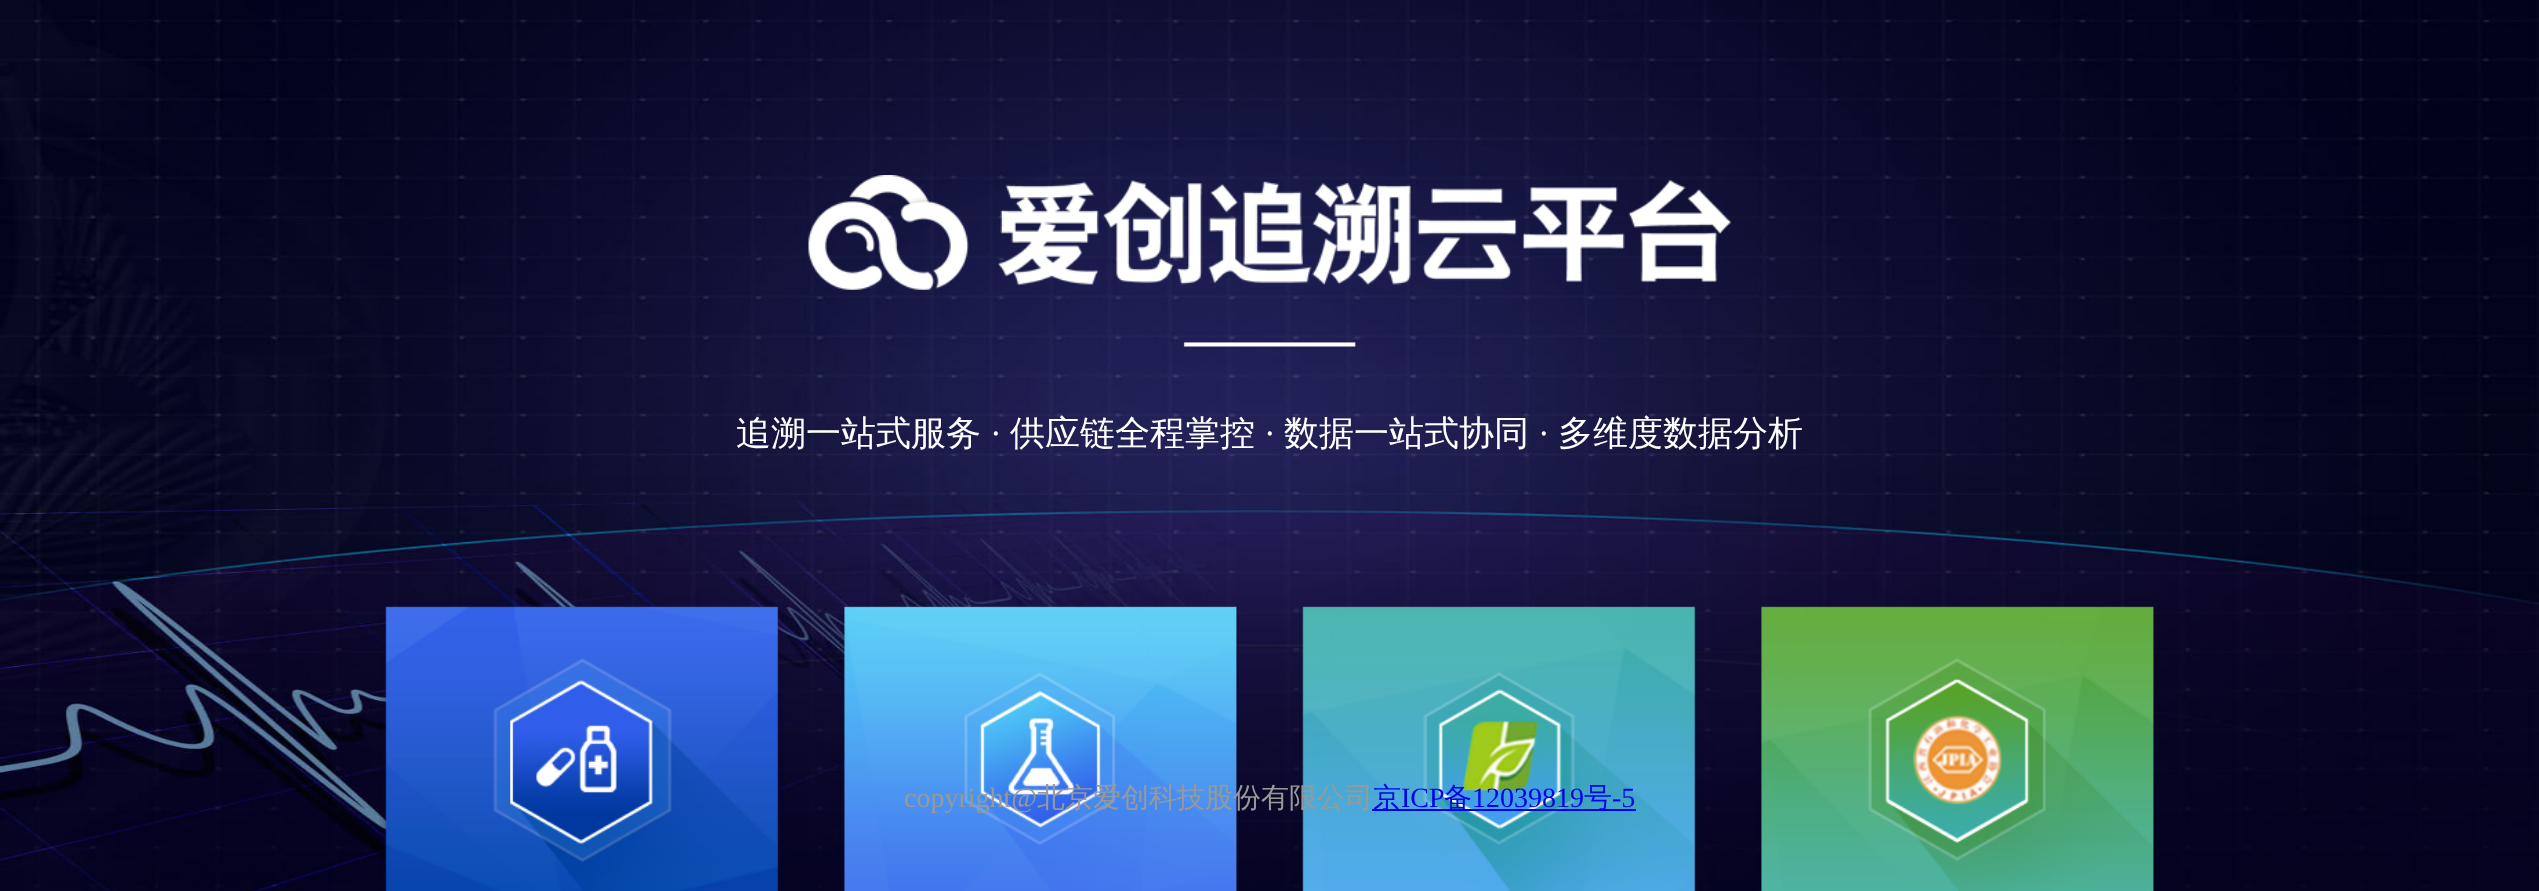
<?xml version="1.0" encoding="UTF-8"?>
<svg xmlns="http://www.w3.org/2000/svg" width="2539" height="891">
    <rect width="100%" height="100%" fill="#FFFFFF"/>
    <image x="0" y="0" width="2539" height="891" href="img_01.png"/>
    <image x="808" y="175" width="923" height="172" href="img_02.png"/>
    <text x="736" y="445" font-family="WenQuanYi Zen Hei" font-size="35" font-weight="500" fill="#FFFFFF">追溯一站式服务</text>
    <text x="990" y="445" font-family="Liberation Serif" font-size="35" fill="#FFFFFF">·</text>
    <text x="1010" y="445" font-family="WenQuanYi Zen Hei" font-size="35" font-weight="500" fill="#FFFFFF">供应链全程掌控</text>
    <text x="1264" y="445" font-family="Liberation Serif" font-size="35" fill="#FFFFFF">·</text>
    <text x="1284" y="445" font-family="WenQuanYi Zen Hei" font-size="35" font-weight="500" fill="#FFFFFF">数据一站式协同</text>
    <text x="1538" y="445" font-family="Liberation Serif" font-size="35" fill="#FFFFFF">·</text>
    <text x="1558" y="445" font-family="WenQuanYi Zen Hei" font-size="35" font-weight="500" fill="#FFFFFF">多维度数据分析</text>
    <image x="379" y="606" width="405" height="285" href="img_03.png"/>
    <image x="839" y="606" width="400" height="285" href="img_04.png"/>
    <image x="1300" y="606" width="396" height="285" href="img_05.png"/>
    <image x="1761" y="606" width="393" height="285" href="img_06.png"/>
    <text x="904" y="807" font-family="Liberation Serif" font-size="28" fill="#999999">copyright@</text>
    <text x="1037" y="807" font-family="WenQuanYi Zen Hei" font-size="28" font-weight="500" fill="#999999">北京爱创科技股份有限公司</text>
    <rect x="1372" y="809" width="264" height="2" fill="#0000EE"/>
    <text x="1373" y="807" font-family="WenQuanYi Zen Hei" font-size="28" font-weight="500" fill="#0000EE">京</text>
    <text x="1401" y="807" font-family="Liberation Serif" font-size="28" fill="#0000EE">ICP</text>
    <text x="1444" y="807" font-family="WenQuanYi Zen Hei" font-size="28" font-weight="500" fill="#0000EE">备</text>
    <text x="1472" y="807" font-family="Liberation Serif" font-size="28" fill="#0000EE">12039819</text>
    <text x="1584" y="807" font-family="WenQuanYi Zen Hei" font-size="28" font-weight="500" fill="#0000EE">号</text>
    <text x="1612" y="807" font-family="Liberation Serif" font-size="28" fill="#0000EE">-5</text>
</svg>
